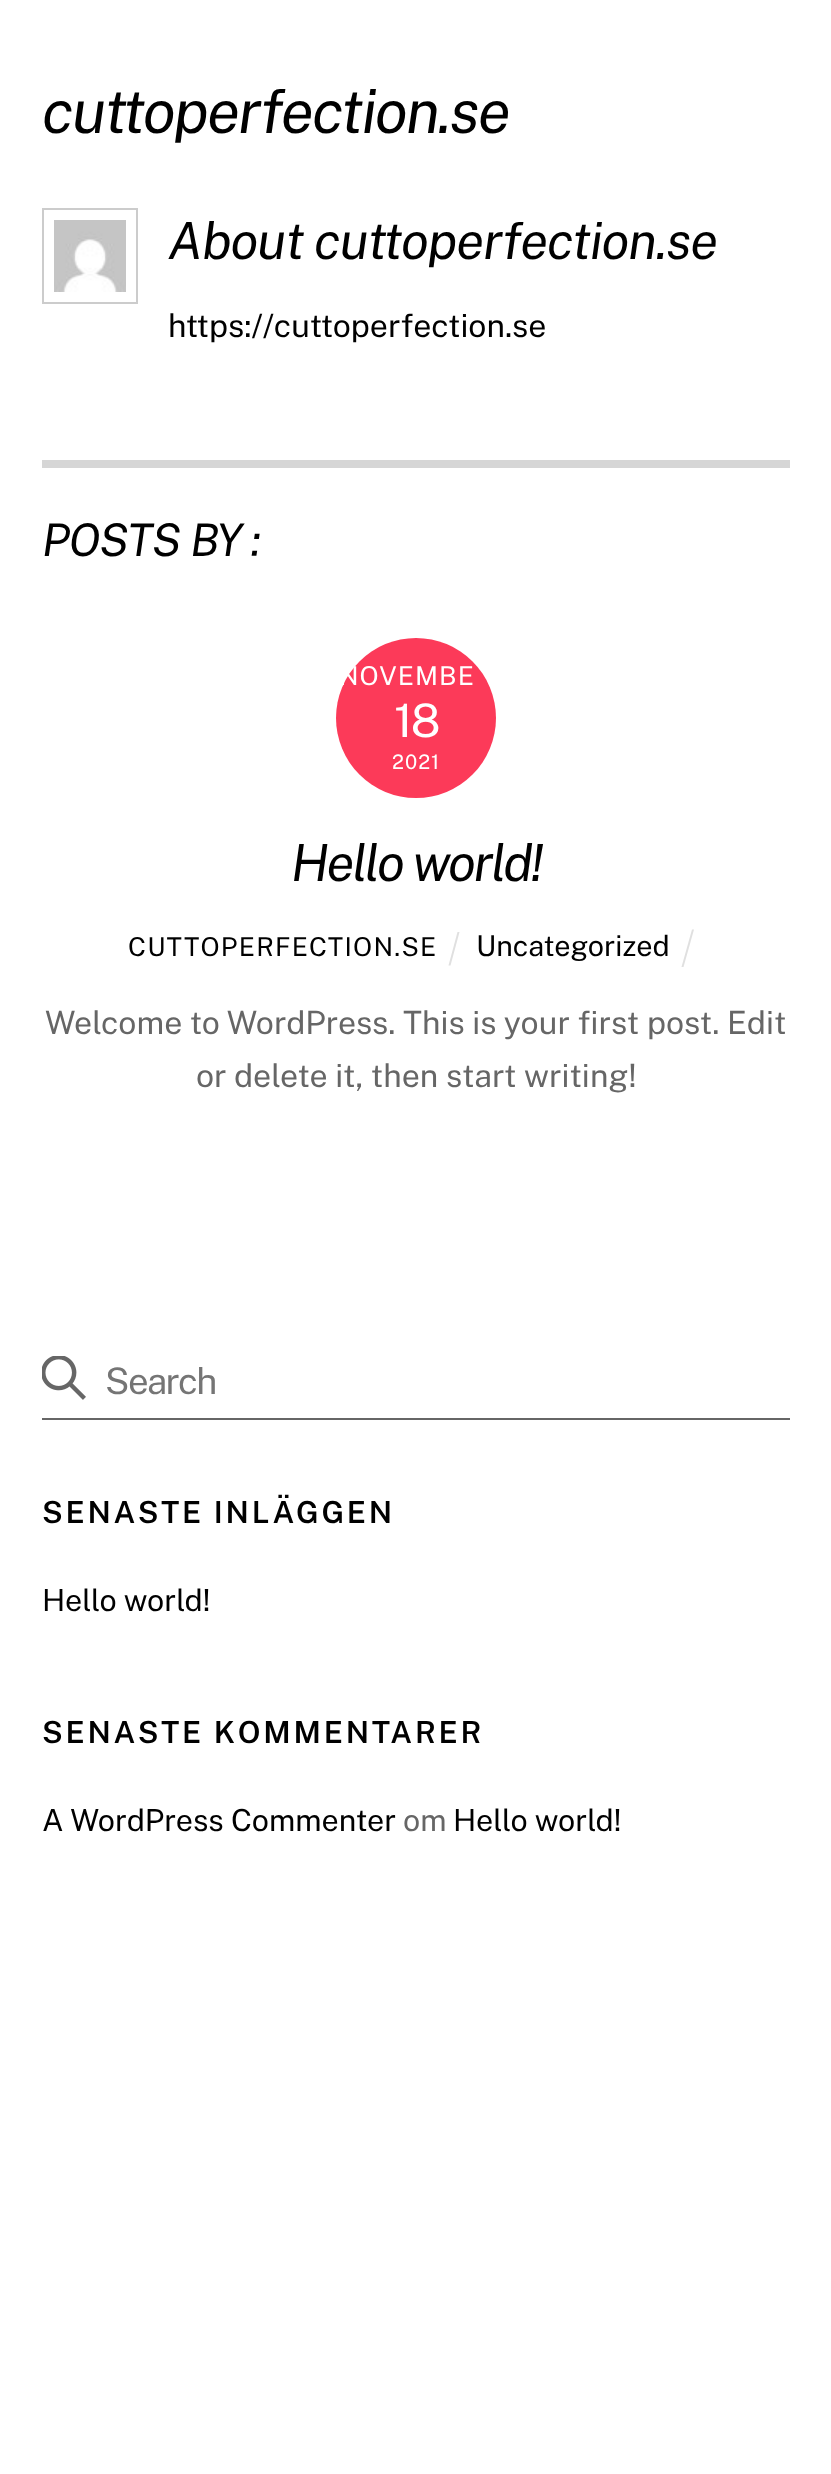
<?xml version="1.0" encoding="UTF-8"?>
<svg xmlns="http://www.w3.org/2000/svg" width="831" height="2474">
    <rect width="100%" height="100%" fill="#FFFFFF"/>
    <text x="42" y="133" font-family="Public Sans" font-size="60.75" font-style="italic" letter-spacing="-1.8" fill="#000000">cuttoperfection.se</text>
    <rect x="43" y="209" width="94" height="94" fill="none" stroke="#CCCCCC" stroke-width="2"/>
    <image x="54" y="220" width="72" height="72" href="img_01.png"/>
    <text x="168" y="259" font-family="Public Sans" font-size="51.25" font-style="italic" letter-spacing="-1" fill="#000000">About</text>
    <text x="314" y="259" font-family="Public Sans" font-size="51.25" font-style="italic" letter-spacing="-1" fill="#000000">cuttoperfection.se</text>
    <text x="168" y="337" font-family="Public Sans" font-size="32" fill="#000000">https://cuttoperfection.se</text>
    <rect x="42" y="460" width="748" height="8" fill="#D6D6D6"/>
    <text x="42" y="556" font-family="Public Sans" font-size="45" font-style="italic" letter-spacing="-1" fill="#000000">POSTS BY :</text>
    <circle cx="416" cy="718" r="80" fill="#FC3A59"/>
    <text x="339" y="685" font-family="Public Sans" font-size="26" letter-spacing="1" fill="#FFFFFF">NOVEMBE</text>
    <text x="394" y="737" font-family="Public Sans" font-size="46" letter-spacing="-2" fill="#FFFFFF">18</text>
    <text x="392" y="769" font-family="Public Sans" font-size="20" letter-spacing="1" fill="#FFFFFF">2021</text>
    <text x="291" y="881" font-family="Public Sans" font-size="51.25" font-style="italic" letter-spacing="-2" fill="#000000">Hello world!</text>
    <text x="128" y="956" font-family="Public Sans" font-size="26" letter-spacing="1.25" fill="#000000">CUTTOPERFECTION.SE</text>
    <path d="M 457.5 932 H 459.5 L 450.5 965.5 H 448.5 Z" fill="#E0E0E0"/>
    <text x="476" y="956" font-family="Public Sans" font-size="28.75" fill="#000000">Uncategorized</text>
    <path d="M 692 929.5 H 694 L 683.5 967 H 681.5 Z" fill="#E0E0E0"/>
    <text x="45" y="1034" font-family="Public Sans" font-size="32" fill="#666666">Welcome to WordPress. This is your first post. Edit</text>
    <text x="196" y="1087" font-family="Public Sans" font-size="32" fill="#666666">or delete it, then start writing!</text>
    <rect x="42" y="1418" width="748" height="2" fill="#666666"/>
    <image x="42" y="1356" width="44" height="44" href="img_02.png"/>
    <text x="105" y="1394" font-family="Public Sans" font-size="36.5" letter-spacing="-1.5" fill="#757575">Search</text>
    <text x="42" y="1523" font-family="Public Sans" font-size="30.4" font-weight="600" letter-spacing="2.75" fill="#000000">SENASTE INLÄGGEN</text>
    <text x="42" y="1611" font-family="Public Sans" font-size="30.4" fill="#000000">Hello world!</text>
    <text x="42" y="1743" font-family="Public Sans" font-size="30.4" font-weight="600" letter-spacing="2.75" fill="#000000">SENASTE KOMMENTARER</text>
    <text x="42" y="1831" font-family="Public Sans" font-size="30.4" fill="#000000">A WordPress Commenter</text>
    <text x="403" y="1831" font-family="Public Sans" font-size="30.4" fill="#666666">om</text>
    <text x="453" y="1831" font-family="Public Sans" font-size="30.4" fill="#000000">Hello world!</text>
</svg>
